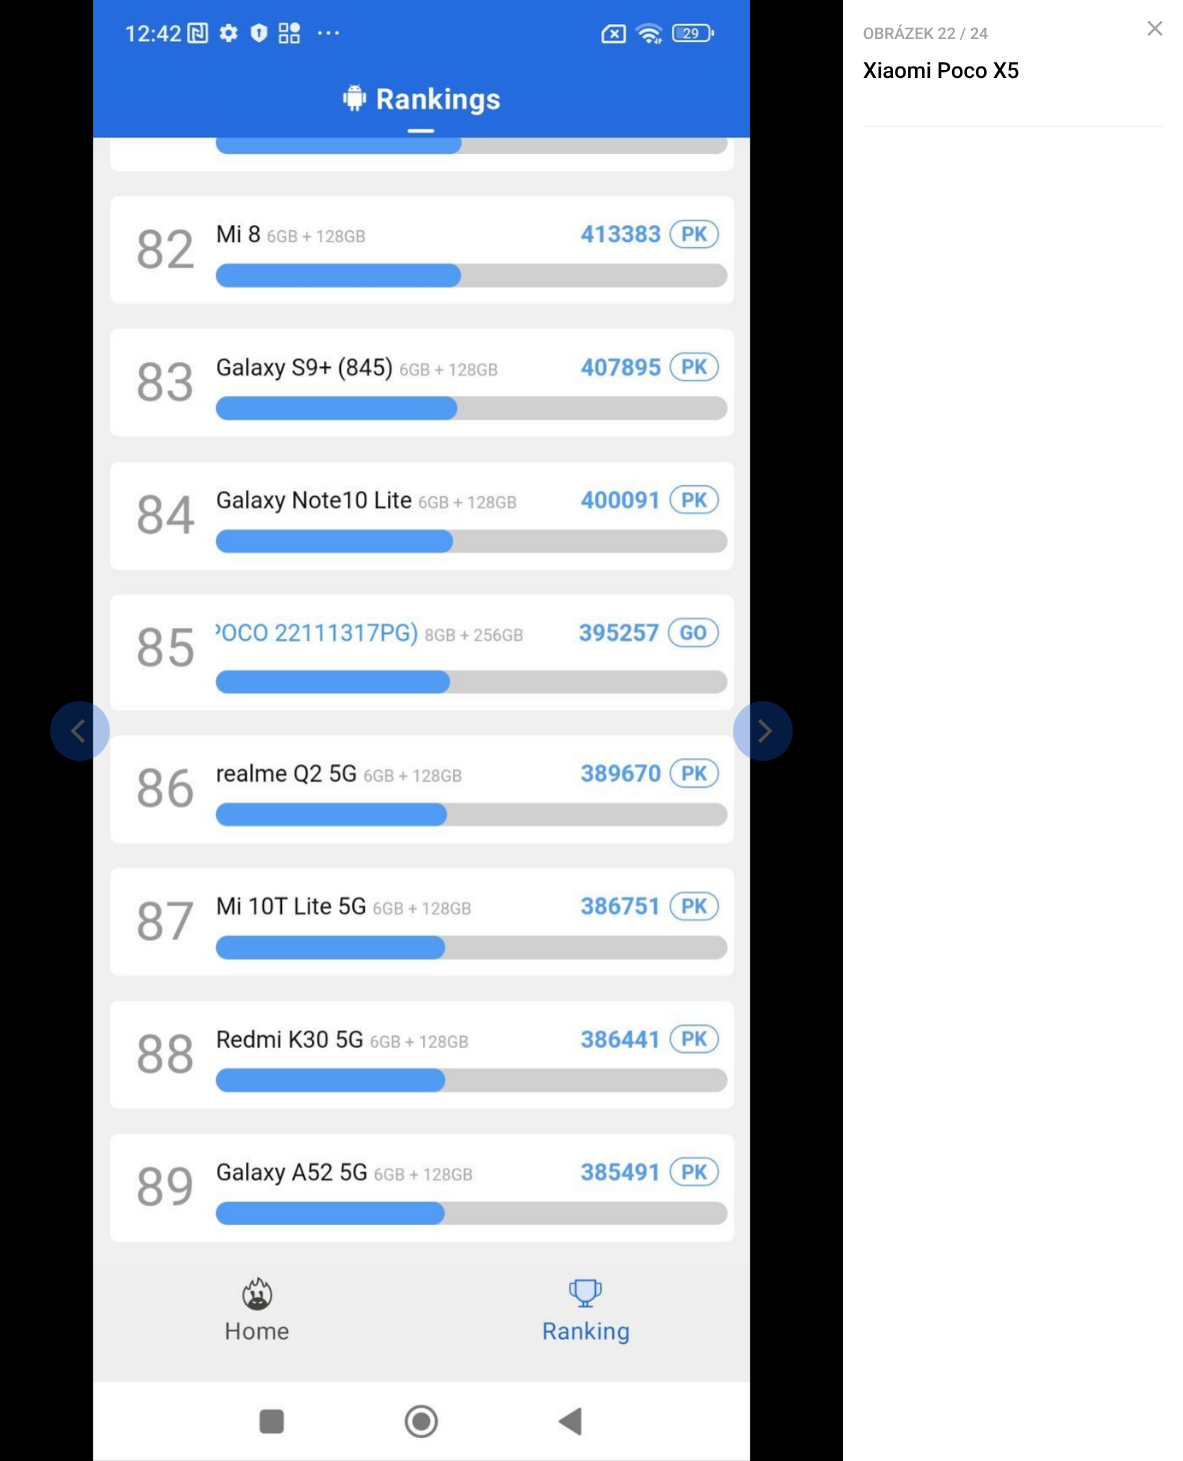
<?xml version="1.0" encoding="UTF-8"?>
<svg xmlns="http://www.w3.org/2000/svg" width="1183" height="1461">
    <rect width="100%" height="100%" fill="#000000"/>
    <image x="92" y="0" width="659" height="1461" href="img_01.png"/>
    <circle cx="80" cy="731" r="30" fill="#0F58D9" fill-opacity="0.3"/>
    <path d="M 70.5 731 L 82.5 743 L 85 740.5 L 75 731 L 85 721.5 L 82.5 719 Z" fill="#4D4D4D"/>
    <circle cx="763" cy="731" r="30" fill="#0F58D9" fill-opacity="0.3"/>
    <path d="M 772.5 731 L 760.5 719 L 758 721.5 L 768 731 L 758 740.5 L 760.5 743 Z" fill="#4D4D4D"/>
    <rect x="843" y="0" width="340" height="1461" fill="#FFFFFF"/>
    <text x="863" y="39" font-family="Roboto" font-size="16" font-weight="500" fill="#A2A2A2">OBRÁZEK 22 / 24</text>
    <text x="863" y="78" font-family="Roboto" font-size="22" font-weight="500" fill="#000000">Xiaomi Poco X5</text>
    <rect x="863" y="126" width="300" height="1" fill="#EEEEEE"/>
    <image x="1147" y="20" width="16" height="16" href="img_02.png"/>
</svg>
